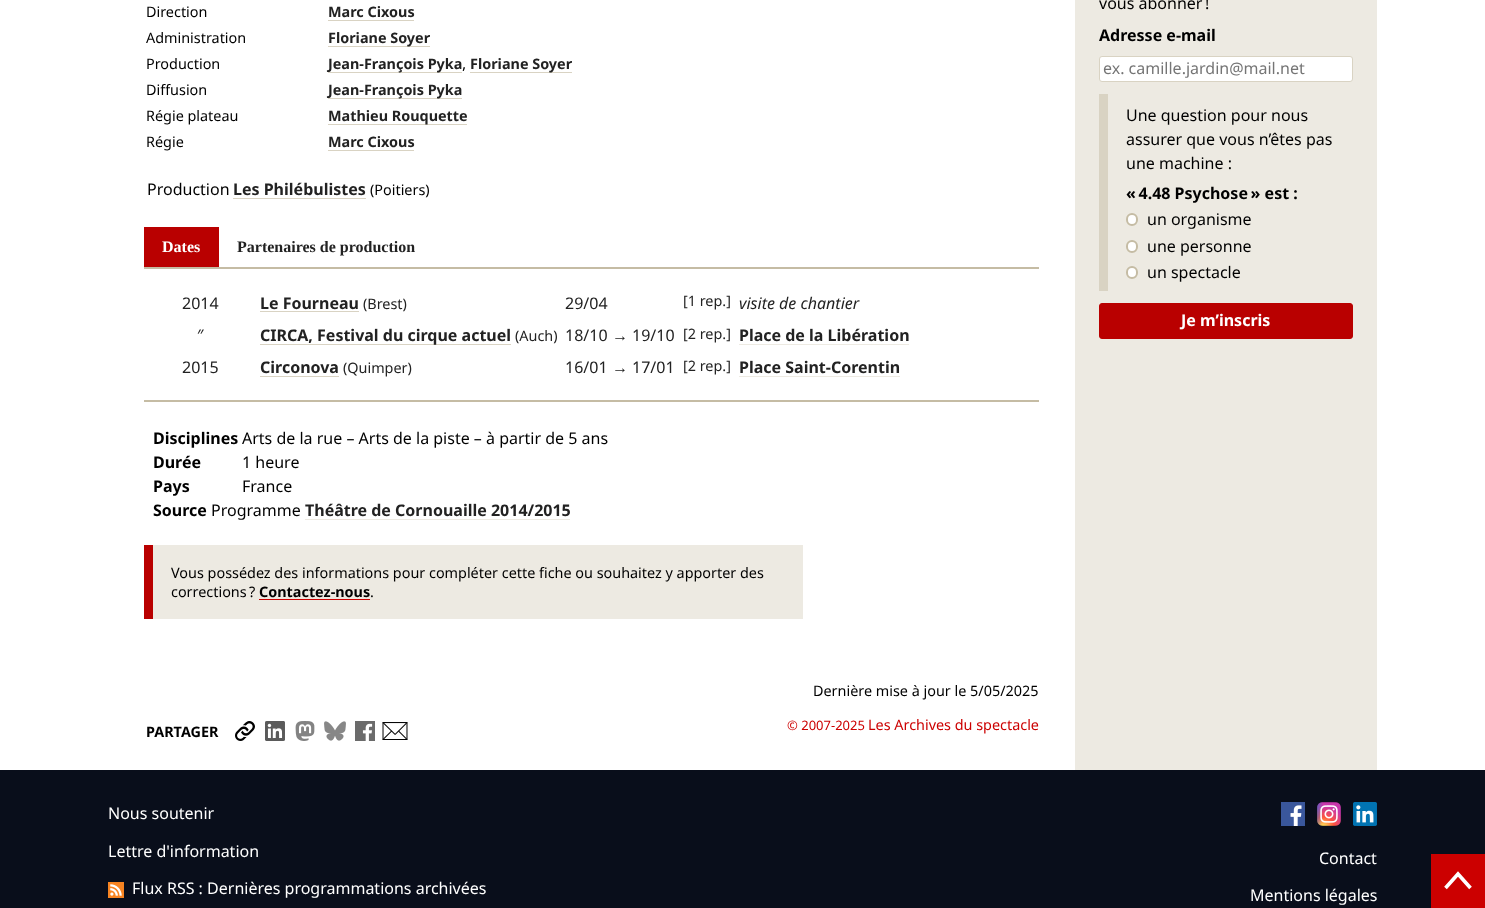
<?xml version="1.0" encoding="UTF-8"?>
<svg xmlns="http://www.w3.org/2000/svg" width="1485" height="908">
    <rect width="100%" height="100%" fill="#FFFFFF"/>
    <text x="146" y="17" font-family="Noto Sans" font-size="14.4" fill="#000000">Direction</text>
    <text x="328" y="17" font-family="Noto Sans" font-size="14.4" font-weight="700" fill="#222222">Marc Cixous</text>
    <rect x="328" y="20" width="86" height="1" fill="#D9D3C3"/>
    <text x="146" y="43" font-family="Noto Sans" font-size="14.4" fill="#000000">Administration</text>
    <rect x="328" y="46" width="102" height="1" fill="#D9D3C3"/>
    <text x="328" y="43" font-family="Noto Sans" font-size="14.4" font-weight="700" fill="#222222">Floriane Soyer</text>
    <text x="146" y="69" font-family="Noto Sans" font-size="14.4" fill="#000000">Production</text>
    <rect x="328" y="72" width="134" height="1" fill="#D9D3C3"/>
    <text x="328" y="69" font-family="Noto Sans" font-size="14.4" font-weight="700" fill="#222222">Jean-François Pyka</text>
    <text x="462" y="69" font-family="Noto Sans" font-size="16" fill="#000000">,</text>
    <rect x="470" y="72" width="102" height="1" fill="#D9D3C3"/>
    <text x="470" y="69" font-family="Noto Sans" font-size="14.4" font-weight="700" fill="#222222">Floriane Soyer</text>
    <text x="146" y="95" font-family="Noto Sans" font-size="14.4" fill="#000000">Diffusion</text>
    <rect x="328" y="98" width="134" height="1" fill="#D9D3C3"/>
    <text x="328" y="95" font-family="Noto Sans" font-size="14.4" font-weight="700" fill="#222222">Jean-François Pyka</text>
    <text x="146" y="121" font-family="Noto Sans" font-size="14.4" fill="#000000">Régie plateau</text>
    <rect x="328" y="124" width="139" height="1" fill="#D9D3C3"/>
    <text x="328" y="121" font-family="Noto Sans" font-size="14.4" font-weight="700" fill="#222222">Mathieu Rouquette</text>
    <text x="146" y="147" font-family="Noto Sans" font-size="14.4" fill="#000000">Régie</text>
    <text x="328" y="147" font-family="Noto Sans" font-size="14.4" font-weight="700" fill="#222222">Marc Cixous</text>
    <rect x="328" y="150" width="86" height="1" fill="#D9D3C3"/>
    <text x="147" y="195" font-family="Noto Sans" font-size="16" fill="#000000">Production</text>
    <text x="233" y="195" font-family="Noto Sans" font-size="16" font-weight="700" fill="#222222">Les Philébulistes</text>
    <rect x="233" y="198" width="133" height="1" fill="#D9D3C3"/>
    <text x="370" y="195" font-family="Noto Sans" font-size="14.4" fill="#000000">(Poitiers)</text>
    <rect x="144" y="227" width="75" height="40" fill="#B90000"/>
    <text x="162" y="252" font-family="Liberation Serif" font-size="16" font-weight="700" fill="#FFFFFF">Dates</text>
    <text x="237" y="252" font-family="Liberation Serif" font-size="16" font-weight="700" fill="#222222">Partenaires de production</text>
    <rect x="144" y="267" width="895" height="2" fill="#C5BCA4"/>
    <rect x="144" y="400" width="895" height="2" fill="#C5BCA4"/>
    <text x="182" y="309" font-family="Noto Sans" font-size="16" fill="#222222">2014</text>
    <text x="260" y="309" font-family="Noto Sans" font-size="16" font-weight="700" fill="#222222">Le Fourneau</text>
    <rect x="260" y="311" width="99" height="1" fill="#D9D3C3"/>
    <text x="363" y="309" font-family="Noto Sans" font-size="14.4" fill="#222222">(Brest)</text>
    <text x="565" y="309" font-family="Noto Sans" font-size="16" fill="#222222">29/04</text>
    <text x="683" y="306" font-family="Noto Sans" font-size="14.4" fill="#222222">[1 rep.]</text>
    <text x="739" y="309" font-family="Noto Sans" font-size="16" font-style="italic" fill="#222222">visite de chantier</text>
    <text x="197" y="341" font-family="Noto Sans" font-size="16" fill="#222222">″</text>
    <rect x="260" y="344" width="251" height="1" fill="#D9D3C3"/>
    <text x="260" y="341" font-family="Noto Sans" font-size="16" font-weight="700" fill="#222222">CIRCA, Festival du cirque actuel</text>
    <text x="515" y="341" font-family="Noto Sans" font-size="14.4" fill="#222222">(Auch)</text>
    <text x="565" y="341" font-family="Noto Sans" font-size="16" fill="#222222">18/10</text>
    <text x="612" y="341" font-family="Liberation Sans" font-size="16" fill="#222222">→</text>
    <text x="632" y="341" font-family="Noto Sans" font-size="16" fill="#222222">19/10</text>
    <text x="683" y="339" font-family="Noto Sans" font-size="14.4" fill="#222222">[2 rep.]</text>
    <text x="739" y="341" font-family="Noto Sans" font-size="16" font-weight="700" fill="#222222">Place de la Libération</text>
    <rect x="739" y="344" width="170" height="1" fill="#EDEAE2"/>
    <text x="182" y="373" font-family="Noto Sans" font-size="16" fill="#222222">2015</text>
    <text x="260" y="373" font-family="Noto Sans" font-size="16" font-weight="700" fill="#222222">Circonova</text>
    <rect x="260" y="376" width="79" height="1" fill="#D9D3C3"/>
    <text x="343" y="373" font-family="Noto Sans" font-size="14.4" fill="#222222">(Quimper)</text>
    <text x="565" y="373" font-family="Noto Sans" font-size="16" fill="#222222">16/01</text>
    <text x="612" y="373" font-family="Liberation Sans" font-size="16" fill="#222222">→</text>
    <text x="632" y="373" font-family="Noto Sans" font-size="16" fill="#222222">17/01</text>
    <text x="683" y="371" font-family="Noto Sans" font-size="14.4" fill="#222222">[2 rep.]</text>
    <text x="739" y="373" font-family="Noto Sans" font-size="16" font-weight="700" fill="#222222">Place Saint-Corentin</text>
    <rect x="739" y="376" width="161" height="1" fill="#EDEAE2"/>
    <text x="153" y="444" font-family="Noto Sans" font-size="16" font-weight="700" fill="#000000">Disciplines</text>
    <text x="242" y="444" font-family="Noto Sans" font-size="16" fill="#000000">Arts de la rue – Arts de la piste – à partir de 5 ans</text>
    <text x="153" y="468" font-family="Noto Sans" font-size="16" font-weight="700" fill="#000000">Durée</text>
    <text x="242" y="468" font-family="Noto Sans" font-size="16" fill="#000000">1 heure</text>
    <text x="153" y="492" font-family="Noto Sans" font-size="16" font-weight="700" fill="#000000">Pays</text>
    <text x="242" y="492" font-family="Noto Sans" font-size="16" fill="#000000">France</text>
    <text x="153" y="516" font-family="Noto Sans" font-size="16" font-weight="700" fill="#000000">Source</text>
    <text x="211" y="516" font-family="Noto Sans" font-size="16" fill="#000000">Programme</text>
    <text x="305" y="516" font-family="Noto Sans" font-size="16" font-weight="700" fill="#222222">Théâtre de Cornouaille 2014/2015</text>
    <rect x="305" y="519" width="265" height="1" fill="#EDEAE2"/>
    <rect x="153" y="545" width="650" height="74" fill="#EDEAE2"/>
    <rect x="144" y="545" width="9" height="74" fill="#B90000"/>
    <text font-family="Noto Sans" font-size="14.4" fill="#000000">
        <tspan x="171" y="578">Vous possédez des informations pour compléter cette fiche ou souhaitez y apporter des</tspan>
        <tspan x="171" y="597">corrections ?</tspan>
    </text>
    <text x="259" y="597" font-family="Noto Sans" font-size="14.4" font-weight="700" fill="#000000">Contactez-nous</text>
    <rect x="259" y="599" width="111" height="1" fill="#CC0000"/>
    <text x="370" y="597" font-family="Noto Sans" font-size="14.4" fill="#000000">.</text>
    <text x="146" y="737" font-family="Noto Sans" font-size="14.4" font-weight="700" fill="#000000">PARTAGER</text>
    <image x="235" y="721" width="20" height="20" href="img_01.png"/>
    <image x="265" y="721" width="20" height="20" href="img_02.png"/>
    <image x="295" y="721" width="20" height="20" href="img_03.png"/>
    <image x="324" y="721" width="22" height="20" href="img_04.png"/>
    <image x="355" y="721" width="20" height="20" href="img_05.png"/>
    <image x="382" y="722" width="26" height="18" href="img_06.png"/>
    <text x="813" y="696" font-family="Noto Sans" font-size="14.4" fill="#000000">Dernière mise à jour le 5/05/2025</text>
    <text x="787" y="730" font-family="Noto Sans" font-size="13" fill="#CC0000">© 2007-2025</text>
    <text x="868" y="730" font-family="Noto Sans" font-size="14.4" fill="#CC0000">Les Archives du spectacle</text>
    <rect x="1075" y="0" width="302" height="770" fill="#EDEAE2"/>
    <text x="1099" y="9" font-family="Noto Sans" font-size="16" fill="#000000">vous abonner !</text>
    <text x="1099" y="41" font-family="Noto Sans" font-size="16" font-weight="700" fill="#000000">Adresse e-mail</text>
    <rect x="1099.5" y="56.5" width="253" height="25" rx="2.5" fill="#FFFFFF" stroke="#D9D3C3"/>
    <text x="1103" y="74" font-family="Noto Sans" font-size="16" fill="#757575">ex. camille.jardin@mail.net</text>
    <rect x="1099" y="94" width="9" height="197" fill="#D9D3C3"/>
    <text font-family="Noto Sans" font-size="16" fill="#000000">
        <tspan x="1126" y="121">Une question pour nous</tspan>
        <tspan x="1126" y="145">assurer que vous n’êtes pas</tspan>
        <tspan x="1126" y="169">une machine :</tspan>
    </text>
    <text x="1126" y="199" font-family="Noto Sans" font-size="16" font-weight="700" fill="#000000">« 4.48 Psychose » est :</text>
    <rect x="1127" y="214" width="10" height="11" rx="5" fill="#FFFFFF" stroke="#C5BCA4" stroke-width="2"/>
    <text x="1147" y="225" font-family="Noto Sans" font-size="16" fill="#000000">un organisme</text>
    <rect x="1127" y="241" width="10" height="11" rx="5" fill="#FFFFFF" stroke="#C5BCA4" stroke-width="2"/>
    <text x="1147" y="252" font-family="Noto Sans" font-size="16" fill="#000000">une personne</text>
    <rect x="1127" y="267" width="10" height="11" rx="5" fill="#FFFFFF" stroke="#C5BCA4" stroke-width="2"/>
    <text x="1147" y="278" font-family="Noto Sans" font-size="16" fill="#000000">un spectacle</text>
    <rect x="1099.5" y="303.5" width="253" height="35" rx="2.5" fill="#B90000" stroke="#B90000"/>
    <text x="1181" y="326" font-family="Noto Sans" font-size="16" font-weight="700" fill="#FFFFFF">Je m’inscris</text>
    <rect x="0" y="770" width="1485" height="138" fill="#090E1B"/>
    <text x="108" y="819" font-family="Noto Sans" font-size="16" fill="#FFFFFF">Nous soutenir</text>
    <text x="108" y="857" font-family="Noto Sans" font-size="16" fill="#FFFFFF">Lettre d'information</text>
    <image x="108" y="882" width="16" height="16" href="img_07.png"/>
    <text x="132" y="894" font-family="Noto Sans" font-size="16" fill="#FFFFFF">Flux RSS : Dernières programmations archivées</text>
    <image x="1281" y="802" width="24" height="24" href="img_08.png"/>
    <image x="1317" y="802" width="24" height="24" href="img_09.png"/>
    <image x="1353" y="802" width="24" height="24" href="img_10.png"/>
    <text x="1319" y="864" font-family="Noto Sans" font-size="16" fill="#FFFFFF">Contact</text>
    <text x="1250" y="901" font-family="Noto Sans" font-size="16" fill="#FFFFFF">Mentions légales</text>
    <rect x="1431" y="854" width="54" height="54" fill="#CC0000"/>
    <path d="M 1445.5 888 L 1458 874 L 1470.5 888" fill="none" stroke="#FFFFFF" stroke-width="3.6"/>
</svg>
